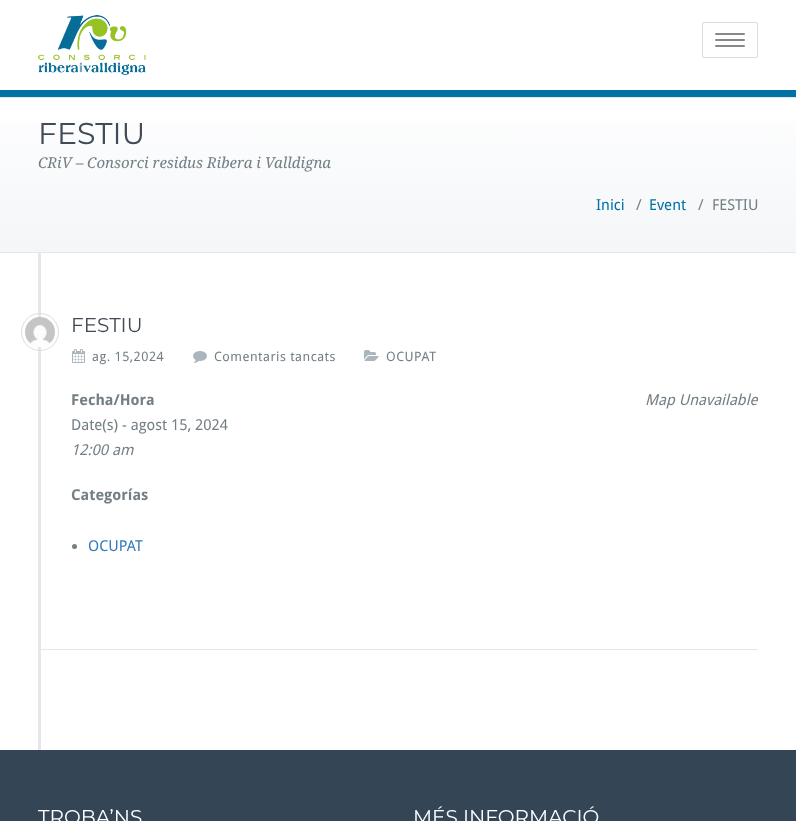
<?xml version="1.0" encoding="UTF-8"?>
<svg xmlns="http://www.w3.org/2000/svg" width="796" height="821">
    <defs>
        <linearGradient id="g1" gradientUnits="userSpaceOnUse" x1="398" y1="98" x2="398" y2="252"><stop offset="0" stop-color="#FEFEFF"/><stop offset="1" stop-color="#F4F6F7"/></linearGradient>
    </defs>
    <rect width="100%" height="100%" fill="#FFFFFF"/>
    <rect x="0" y="90" width="796" height="7" fill="#0172A3"/>
    <image x="38" y="15" width="108" height="60" href="img_01.png"/>
    <rect x="702.5" y="22.5" width="55" height="35" rx="1.5" fill="none" stroke="#DDDDDD"/>
    <rect x="715" y="33" width="30" height="2" rx="1" fill="#888888"/>
    <rect x="715" y="39" width="30" height="2" rx="1" fill="#888888"/>
    <rect x="715" y="45" width="30" height="2" rx="1" fill="#888888"/>
    <rect x="0" y="121" width="796" height="131" fill="url(#g1)"/>
    <rect x="0" y="97" width="796" height="1" fill="#E4E8EA"/>
    <rect x="0" y="252" width="796" height="1" fill="#E4E8EA"/>
    <text x="38" y="144" font-family="Montserrat" font-size="30" fill="#404B56">FESTIU</text>
    <text x="38" y="168" font-family="Droid Serif" font-size="15" font-style="italic" fill="#737F85">CRiV – Consorci residus Ribera i Valldigna</text>
    <text x="596" y="210" font-family="Droid Sans" font-size="15" fill="#0172A3">Inici</text>
    <text x="636" y="210" font-family="Droid Sans" font-size="15" fill="#737F85">/</text>
    <text x="649" y="210" font-family="Droid Sans" font-size="15" fill="#0172A3">Event</text>
    <text x="698" y="210" font-family="Droid Sans" font-size="15" fill="#737F85">/</text>
    <text x="712" y="210" font-family="Droid Sans" font-size="15" fill="#737F85">FESTIU</text>
    <rect x="38" y="253" width="3" height="497" fill="#E4E8EA"/>
    <rect x="41" y="649" width="717" height="1" fill="#E4E8EA"/>
    <circle cx="40" cy="332" r="18.5" fill="none" stroke="#DDDDDD"/>
    <image x="25" y="317" width="30" height="30" href="img_02.png"/>
    <text x="71" y="332" font-family="Montserrat" font-size="20" fill="#404B56">FESTIU</text>
    <image x="72" y="349" width="13" height="14" href="img_03.png"/>
    <text x="92" y="361" font-family="Droid Sans" font-size="13" letter-spacing="0.5" fill="#737F85">ag. 15,2024</text>
    <image x="193" y="351" width="14" height="12" href="img_04.png"/>
    <text x="214" y="361" font-family="Droid Sans" font-size="13" letter-spacing="0.5" fill="#737F85">Comentaris tancats</text>
    <image x="364" y="350" width="15" height="11" href="img_05.png"/>
    <text x="386" y="361" font-family="Droid Sans" font-size="13" letter-spacing="0.5" fill="#737F85">OCUPAT</text>
    <text x="71" y="405" font-family="Droid Sans" font-size="15" font-weight="700" fill="#737F85">Fecha/Hora</text>
    <text x="71" y="430" font-family="Droid Sans" font-size="15" fill="#737F85">Date(s) - agost 15, 2024</text>
    <text x="71" y="455" font-family="Droid Sans" font-size="15" font-style="italic" fill="#737F85">12:00 am</text>
    <text x="645" y="405" font-family="Droid Sans" font-size="15" font-style="italic" fill="#737F85">Map Unavailable</text>
    <text x="71" y="500" font-family="Droid Sans" font-size="15" font-weight="700" fill="#737F85">Categorías</text>
    <circle cx="74.5" cy="546.5" r="2.5" fill="#737F85"/>
    <text x="88" y="551" font-family="Droid Sans" font-size="15" fill="#337AB7">OCUPAT</text>
    <rect x="0" y="750" width="796" height="71" fill="#344656"/>
    <text x="38" y="824" font-family="Montserrat" font-size="20" fill="#FFFFFF">TROBA’NS</text>
    <text x="413" y="824" font-family="Montserrat" font-size="20" fill="#FFFFFF">MÉS INFORMACIÓ</text>
</svg>
